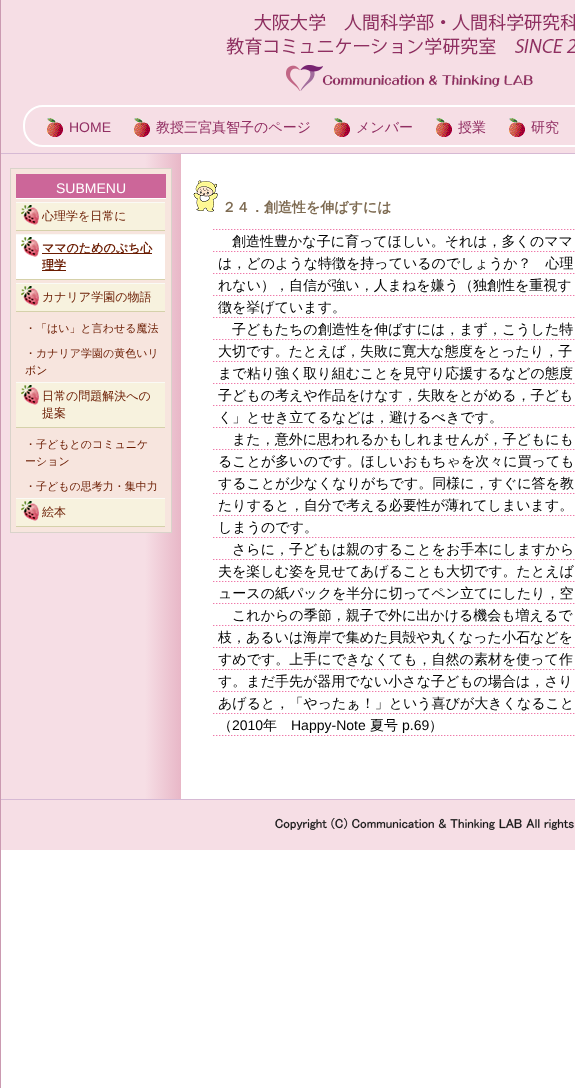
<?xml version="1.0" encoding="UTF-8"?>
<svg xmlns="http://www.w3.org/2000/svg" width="575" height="1088">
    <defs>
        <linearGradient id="g1" gradientUnits="userSpaceOnUse" x1="1" y1="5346" x2="181" y2="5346"><stop offset="0.8" stop-color="#F6DEE5"/><stop offset="1" stop-color="#E8B7C7"/></linearGradient>
    </defs>
    <rect width="100%" height="100%" fill="#FFFFFF"/>
    <rect x="0" y="0" width="1" height="1088" fill="#CB9AB1"/>
    <rect x="1" y="0" width="574" height="153" fill="#F6DEE5"/>
    <rect x="1" y="153" width="574" height="1" fill="#D6B9D4"/>
    <image x="226" y="13" width="349" height="78" href="img_01.png"/>
    <rect x="24" y="106" width="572" height="40" rx="19" fill="none" stroke="#FFFFFF" stroke-width="2"/>
    <image x="47" y="118" width="16" height="19" href="img_02.png"/>
    <text x="69" y="132" font-family="Liberation Sans" font-size="14" fill="#912E62">HOME</text>
    <image x="134" y="118" width="16" height="19" href="img_02.png"/>
    <text x="156" y="132" font-family="WenQuanYi Zen Hei" font-size="14" font-weight="500" fill="#912E62">教授三宮真智子のページ</text>
    <image x="334" y="118" width="16" height="19" href="img_02.png"/>
    <text x="356" y="132" font-family="WenQuanYi Zen Hei" font-size="14" font-weight="500" fill="#912E62">メンバー</text>
    <image x="436" y="118" width="16" height="19" href="img_02.png"/>
    <text x="458" y="132" font-family="WenQuanYi Zen Hei" font-size="14" font-weight="500" fill="#912E62">授業</text>
    <image x="509" y="118" width="16" height="19" href="img_02.png"/>
    <text x="531" y="132" font-family="WenQuanYi Zen Hei" font-size="14" font-weight="500" fill="#912E62">研究</text>
    <rect x="1" y="154" width="180" height="645" fill="url(#g1)"/>
    <rect x="10.5" y="168.5" width="161" height="364" fill="#F7E5DE" stroke="#D9D3CA"/>
    <rect x="16" y="174" width="150" height="24" fill="#CC6699"/>
    <rect x="16" y="198" width="150" height="1" fill="#FFFFFF"/>
    <text x="56" y="193" font-family="Liberation Sans" font-size="14" fill="#FFFFFF">SUBMENU</text>
    <rect x="16" y="203" width="149" height="27" fill="#F7F2DE"/>
    <image x="21" y="205" width="18" height="20" href="img_03.png"/>
    <rect x="16" y="202" width="149" height="1" fill="#FAFAF5"/>
    <rect x="16" y="230" width="149" height="1" fill="#D5D1AA"/>
    <text x="42" y="220" font-family="WenQuanYi Zen Hei" font-size="12" font-weight="500" fill="#6A1B00">心理学を日常に</text>
    <rect x="16" y="235" width="149" height="44" fill="#FFFFFF"/>
    <image x="21" y="237" width="18" height="20" href="img_04.png"/>
    <rect x="16" y="234" width="149" height="1" fill="#FAFAF5"/>
    <rect x="16" y="279" width="149" height="1" fill="#D5D1AA"/>
    <rect x="42" y="253" width="110" height="1" fill="#6A1B00"/>
    <text x="42" y="252" font-family="WenQuanYi Zen Hei" font-size="12" font-weight="700" fill="#6A1B00">ママのためのぷち心</text>
    <rect x="42" y="270" width="24" height="1" fill="#6A1B00"/>
    <text x="42" y="269" font-family="WenQuanYi Zen Hei" font-size="12" font-weight="700" fill="#6A1B00">理学</text>
    <rect x="16" y="284" width="149" height="27" fill="#F7F2DE"/>
    <image x="21" y="286" width="18" height="20" href="img_03.png"/>
    <rect x="16" y="283" width="149" height="1" fill="#FAFAF5"/>
    <rect x="16" y="311" width="149" height="1" fill="#D5D1AA"/>
    <text x="42" y="301" font-family="WenQuanYi Zen Hei" font-size="12" font-weight="500" fill="#6A1B00">カナリア学園の物語</text>
    <text x="25" y="332" font-family="WenQuanYi Zen Hei" font-size="11" font-weight="500" fill="#6A1B00">・「はい」と言わせる魔法</text>
    <text font-family="WenQuanYi Zen Hei" font-size="11" font-weight="500" fill="#6A1B00">
        <tspan x="25" y="357">・カナリア学園の黄色いリ</tspan>
        <tspan x="25" y="374">ボン</tspan>
    </text>
    <rect x="16" y="383" width="149" height="44" fill="#F7F2DE"/>
    <image x="21" y="385" width="18" height="20" href="img_03.png"/>
    <rect x="16" y="382" width="149" height="1" fill="#FAFAF5"/>
    <rect x="16" y="427" width="149" height="1" fill="#D5D1AA"/>
    <text font-family="WenQuanYi Zen Hei" font-size="12" font-weight="500" fill="#6A1B00">
        <tspan x="42" y="400">日常の問題解決への</tspan>
        <tspan x="42" y="417">提案</tspan>
    </text>
    <text font-family="WenQuanYi Zen Hei" font-size="11" font-weight="500" fill="#6A1B00">
        <tspan x="25" y="448">・子どもとのコミュニケ</tspan>
        <tspan x="25" y="465">ーション</tspan>
    </text>
    <text x="25" y="490" font-family="WenQuanYi Zen Hei" font-size="11" font-weight="500" fill="#6A1B00">・子どもの思考力・集中力</text>
    <rect x="16" y="499" width="149" height="27" fill="#F7F2DE"/>
    <image x="21" y="501" width="18" height="20" href="img_03.png"/>
    <rect x="16" y="498" width="149" height="1" fill="#FAFAF5"/>
    <rect x="16" y="526" width="149" height="1" fill="#D5D1AA"/>
    <text x="42" y="516" font-family="WenQuanYi Zen Hei" font-size="12" font-weight="500" fill="#6A1B00">絵本</text>
    <image x="193" y="180" width="25" height="32" href="img_05.png"/>
    <text x="222" y="212" font-family="WenQuanYi Zen Hei" font-size="14" font-weight="700" fill="#7D6A51">２４．創造性を伸ばすには</text>
    <image x="213" y="229" width="362" height="507" href="img_06.png"/>
    <text x="232" y="246" font-family="WenQuanYi Zen Hei" font-size="14" font-weight="500" fill="#000000">創造性豊かな子に育ってほしい。それは，多くのママ</text>
    <text font-family="WenQuanYi Zen Hei" font-size="14" font-weight="500" fill="#000000">
        <tspan x="218" y="268">は，どのような特徴を持っているのでしょうか？　心理</tspan>
        <tspan x="218" y="290">れない），自信が強い，人まねを嫌う（独創性を重視す</tspan>
        <tspan x="218" y="312">徴を挙げています。</tspan>
    </text>
    <text x="232" y="334" font-family="WenQuanYi Zen Hei" font-size="14" font-weight="500" fill="#000000">子どもたちの創造性を伸ばすには，まず，こうした特</text>
    <text font-family="WenQuanYi Zen Hei" font-size="14" font-weight="500" fill="#000000">
        <tspan x="218" y="356">大切です。たとえば，失敗に寛大な態度をとったり，子</tspan>
        <tspan x="218" y="378">まで粘り強く取り組むことを見守り応援するなどの態度</tspan>
        <tspan x="218" y="400">子どもの考えや作品をけなす，失敗をとがめる，子ども</tspan>
        <tspan x="218" y="422">く」とせき立てるなどは，避けるべきです。</tspan>
    </text>
    <text x="232" y="444" font-family="WenQuanYi Zen Hei" font-size="14" font-weight="500" fill="#000000">また，意外に思われるかもしれませんが，子どもにも</text>
    <text font-family="WenQuanYi Zen Hei" font-size="14" font-weight="500" fill="#000000">
        <tspan x="218" y="466">ることが多いのです。ほしいおもちゃを次々に買っても</tspan>
        <tspan x="218" y="488">することが少なくなりがちです。同様に，すぐに答を教</tspan>
        <tspan x="218" y="510">たりすると，自分で考える必要性が薄れてしまいます。</tspan>
        <tspan x="218" y="532">しまうのです。</tspan>
    </text>
    <text x="232" y="554" font-family="WenQuanYi Zen Hei" font-size="14" font-weight="500" fill="#000000">さらに，子どもは親のすることをお手本にしますから</text>
    <text font-family="WenQuanYi Zen Hei" font-size="14" font-weight="500" fill="#000000">
        <tspan x="218" y="576">夫を楽しむ姿を見せてあげることも大切です。たとえば</tspan>
        <tspan x="218" y="598">ュースの紙パックを半分に切ってペン立てにしたり，空</tspan>
    </text>
    <text x="232" y="620" font-family="WenQuanYi Zen Hei" font-size="14" font-weight="500" fill="#000000">これからの季節，親子で外に出かける機会も増えるで</text>
    <text font-family="WenQuanYi Zen Hei" font-size="14" font-weight="500" fill="#000000">
        <tspan x="218" y="642">枝，あるいは海岸で集めた貝殻や丸くなった小石などを</tspan>
        <tspan x="218" y="664">すめです。上手にできなくても，自然の素材を使って作</tspan>
        <tspan x="218" y="686">す。まだ手先が器用でない小さな子どもの場合は，さり</tspan>
        <tspan x="218" y="708">あげると，「やったぁ！」という喜びが大きくなること</tspan>
        <tspan x="218" y="730">（</tspan>
    </text>
    <text x="232" y="730" font-family="Liberation Sans" font-size="14" fill="#000000">2010</text>
    <text x="263" y="730" font-family="WenQuanYi Zen Hei" font-size="14" font-weight="500" fill="#000000">年</text>
    <text x="291" y="730" font-family="Liberation Sans" font-size="14" fill="#000000">Happy-Note</text>
    <text x="370" y="730" font-family="WenQuanYi Zen Hei" font-size="14" font-weight="500" fill="#000000">夏号</text>
    <text x="402" y="730" font-family="Liberation Sans" font-size="14" fill="#000000">p.69</text>
    <text x="429" y="730" font-family="WenQuanYi Zen Hei" font-size="14" font-weight="500" fill="#000000">）</text>
    <rect x="1" y="800" width="574" height="50" fill="#F6DEE5"/>
    <rect x="1" y="799" width="574" height="1" fill="#D6B9D4"/>
    <image x="275" y="818" width="299" height="12" href="img_07.png"/>
</svg>
